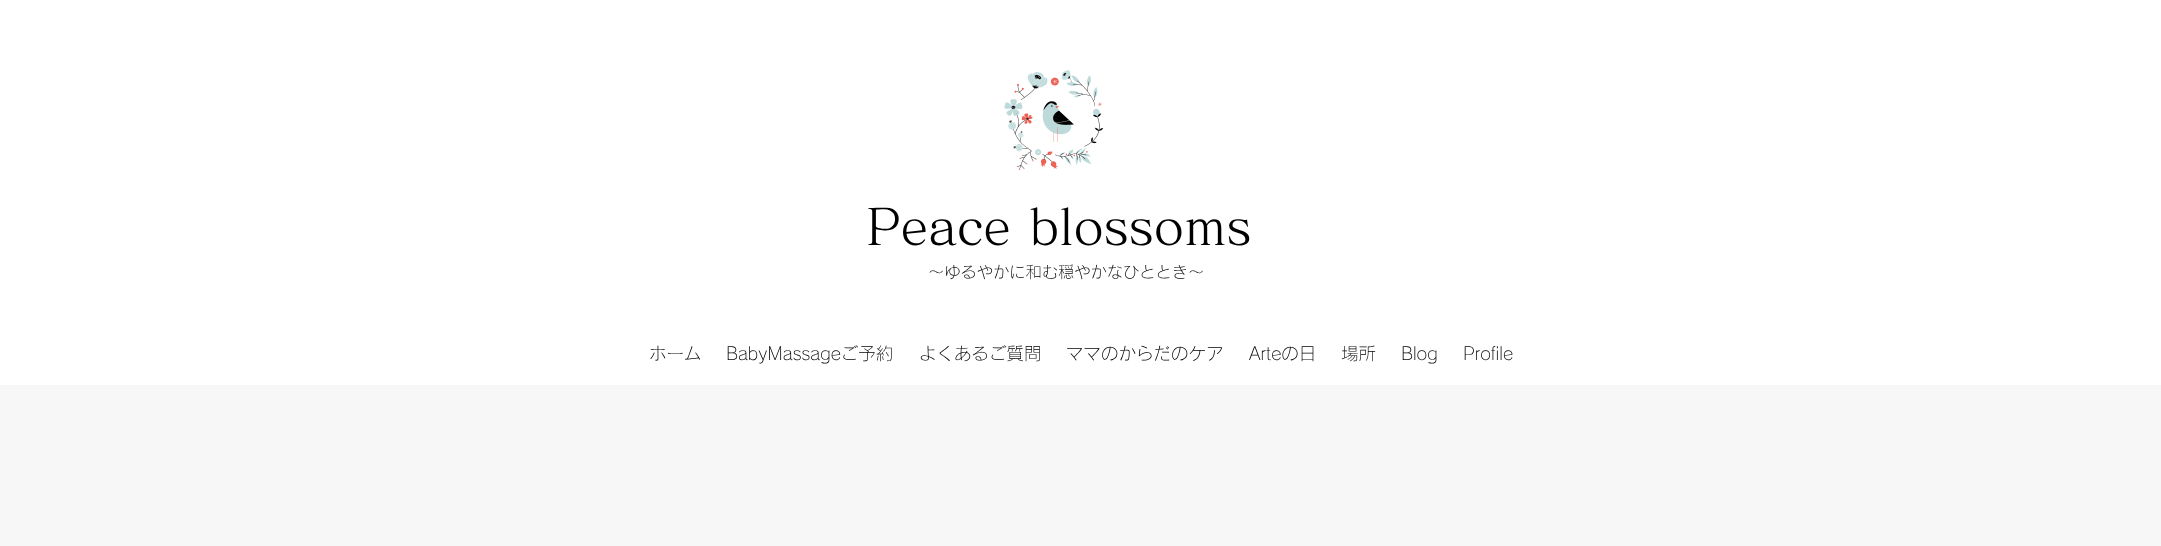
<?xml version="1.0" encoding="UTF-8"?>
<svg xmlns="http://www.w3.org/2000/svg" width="2161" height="546">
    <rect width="100%" height="100%" fill="#FFFFFF"/>
    <image x="1004" y="70" width="100" height="100" href="img_01.png"/>
    <text x="866" y="245" font-family="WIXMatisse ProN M" font-size="50" font-weight="500" fill="#000000">Peace blossoms</text>
    <text x="928" y="278" font-family="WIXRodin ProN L" font-size="16.25" font-weight="300" fill="#000000">〜ゆるやかに和む穏やかなひととき〜</text>
    <text x="649" y="360" font-family="WIXRodin ProN L" font-size="17.5" font-weight="300" fill="#000000">ホーム</text>
    <text x="726" y="360" font-family="WIXRodin ProN L" font-size="17.5" font-weight="300" fill="#000000">BabyMassageご予約</text>
    <text x="919" y="360" font-family="WIXRodin ProN L" font-size="17.5" font-weight="300" fill="#000000">よくあるご質問</text>
    <text x="1066" y="360" font-family="WIXRodin ProN L" font-size="17.5" font-weight="300" fill="#000000">ママのからだのケア</text>
    <text x="1249" y="360" font-family="WIXRodin ProN L" font-size="17.5" font-weight="300" fill="#000000">Arteの日</text>
    <text x="1341" y="360" font-family="WIXRodin ProN L" font-size="17.5" font-weight="300" fill="#000000">場所</text>
    <text x="1401" y="360" font-family="WIXRodin ProN L" font-size="17.5" font-weight="300" fill="#000000">Blog</text>
    <text x="1463" y="360" font-family="WIXRodin ProN L" font-size="17.5" font-weight="300" fill="#000000">Profile</text>
    <rect x="0" y="385" width="2161" height="161" fill="#F7F7F7"/>
</svg>
